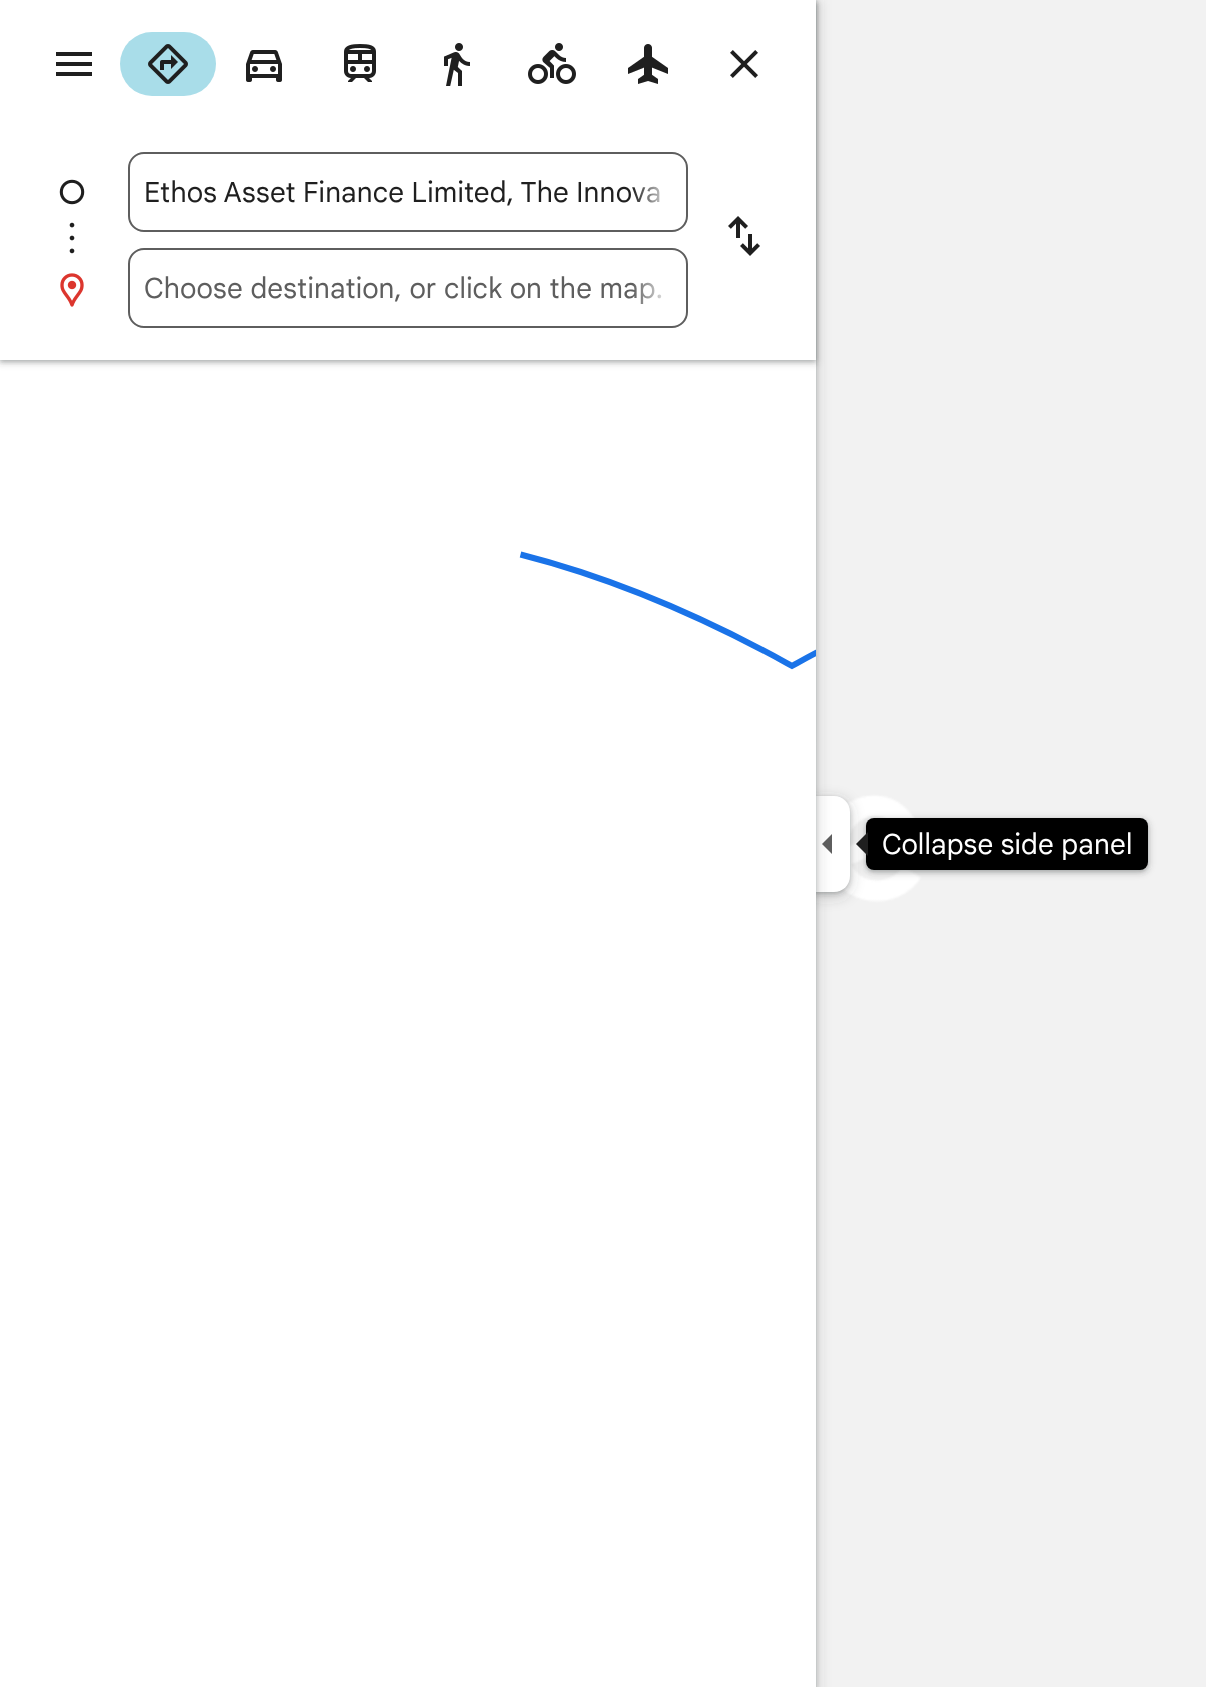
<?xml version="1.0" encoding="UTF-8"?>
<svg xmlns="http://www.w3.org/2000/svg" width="1206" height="1687">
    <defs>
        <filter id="blur1" x="-50%" y="-200%" width="200%" height="500%"><feGaussianBlur stdDeviation="6"/></filter>
        <filter id="blur2" x="-50%" y="-200%" width="200%" height="500%"><feGaussianBlur stdDeviation="2"/></filter>
        <filter id="blur3" x="-50%" y="-200%" width="200%" height="500%"><feGaussianBlur stdDeviation="3"/></filter>
        <linearGradient id="g1" gradientUnits="userSpaceOnUse" x1="632" y1="192" x2="672" y2="192"><stop offset="0" stop-color="#FFFFFF" stop-opacity="0"/><stop offset="1" stop-color="#FFFFFF"/></linearGradient>
        <linearGradient id="g2" gradientUnits="userSpaceOnUse" x1="632" y1="288" x2="672" y2="288"><stop offset="0" stop-color="#FFFFFF" stop-opacity="0"/><stop offset="1" stop-color="#FFFFFF"/></linearGradient>
        <clipPath id="clip1"><rect x="384" y="312" width="408" height="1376"/></clipPath>
        <clipPath id="clip2"><rect x="792" y="312" width="24" height="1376"/></clipPath>
    </defs>
    <rect width="100%" height="100%" fill="#F2F2F2"/>
    <image x="816" y="741" width="106" height="162" href="img_12.png"/>
    <rect x="800" y="796" width="54" height="104" rx="20" fill="#3C4043" fill-opacity="0.15" filter="url(#blur1)"/>
    <rect x="804" y="798" width="46" height="96" rx="16" fill="#3C4043" fill-opacity="0.3" filter="url(#blur2)"/>
    <path d="M 804 796 H 834 C 843 796 850 803 850 812 V 876 C 850 885 843 892 834 892 H 804 Z" fill="#FFFFFF"/>
    <path d="M 832 854 L 822 844 L 832 834 Z" fill="#5E5E5E"/>
    <rect x="-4" y="0" width="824" height="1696" fill="#3C4043" fill-opacity="0.15" filter="url(#blur1)"/>
    <rect x="0" y="2" width="816" height="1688" fill="#3C4043" fill-opacity="0.3" filter="url(#blur2)"/>
    <rect x="0" y="360" width="816" height="1327" fill="#FFFFFF"/>
    <rect x="-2" y="0" width="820" height="364" fill="#3C4043" fill-opacity="0.15" filter="url(#blur3)"/>
    <rect x="0" y="2" width="816" height="360" fill="#3C4043" fill-opacity="0.3" filter="url(#blur2)"/>
    <rect x="0" y="0" width="816" height="360" fill="#FFFFFF"/>
    <path d="M 56 76 V 72 H 92 V 76 Z M 56 66 V 62 H 92 V 66 Z M 56 56 V 52 H 92 V 56 Z" fill="#1F1F1F"/>
    <rect x="120" y="32" width="96" height="64" rx="32" fill="#A9DDE9"/>
    <image x="148" y="44" width="40" height="40" href="img_01.png"/>
    <image x="246" y="50" width="36" height="32" href="img_02.png"/>
    <image x="344" y="44" width="32" height="38" href="img_03.png"/>
    <image x="444" y="43" width="26" height="43" href="img_04.png"/>
    <image x="528" y="43" width="48" height="41" href="img_05.png"/>
    <image x="628" y="44" width="40" height="40" href="img_06.png"/>
    <image x="730" y="50" width="28" height="28" href="img_07.png"/>
    <image x="59" y="179" width="26" height="26" href="img_08.png"/>
    <image x="69" y="222" width="6" height="32" href="img_09.png"/>
    <rect x="129" y="153" width="558" height="78" rx="15" fill="none" stroke="#5E5E5E" stroke-width="2"/>
    <text x="144" y="202" font-family="Google Sans" font-size="28" letter-spacing="0.2" fill="#1F1F1F">Ethos Asset Finance Limited, The Innova</text>
    <rect x="633" y="186" width="27" height="17" fill="url(#g1)"/>
    <image x="60" y="273" width="24" height="34" href="img_10.png"/>
    <rect x="129" y="249" width="558" height="78" rx="15" fill="none" stroke="#5E5E5E" stroke-width="2"/>
    <text x="144" y="298" font-family="Google Sans" font-size="28" letter-spacing="0.2" fill="#5E5E5E">Choose destination, or click on the map.</text>
    <rect x="633" y="282" width="29" height="23" fill="url(#g2)"/>
    <image x="728" y="216" width="32" height="40" href="img_11.png"/>
    <g clip-path="url(#clip1)">
        <path d="M 520.5 554.5 C 690 597.5 881.5 702.5 1052.5 846 C 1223 989 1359.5 1159.5 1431.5 1319 C 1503.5 1478.5 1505.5 1614.5 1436 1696.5 C 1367 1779 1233 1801 1063.5 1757.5" fill="none" stroke="#1A73E8" stroke-width="6"/>
    </g>
    <g clip-path="url(#clip2)">
        <path d="M 520.5 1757.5 C 351 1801 217 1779 148 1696.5 C 78.5 1614.5 80.5 1478.5 152.5 1319 C 224.5 1159.5 361 989 531.5 846 C 702.5 702.5 894 597.5 1063.5 554.5" fill="none" stroke="#1A73E8" stroke-width="6"/>
    </g>
    <rect x="864" y="818" width="286" height="56" rx="10" fill="#3C4043" fill-opacity="0.15" filter="url(#blur3)"/>
    <rect x="866" y="820" width="282" height="52" rx="8" fill="#3C4043" fill-opacity="0.3" filter="url(#blur2)"/>
    <rect x="866" y="818" width="282" height="52" rx="8" fill="#000000"/>
    <path d="M 868 832 V 856 L 856 844 Z" fill="#1F1F1F"/>
    <text x="882" y="854" font-family="Google Sans" font-size="28" letter-spacing="0.2" fill="#FFFFFF">Collapse side panel</text>
</svg>
